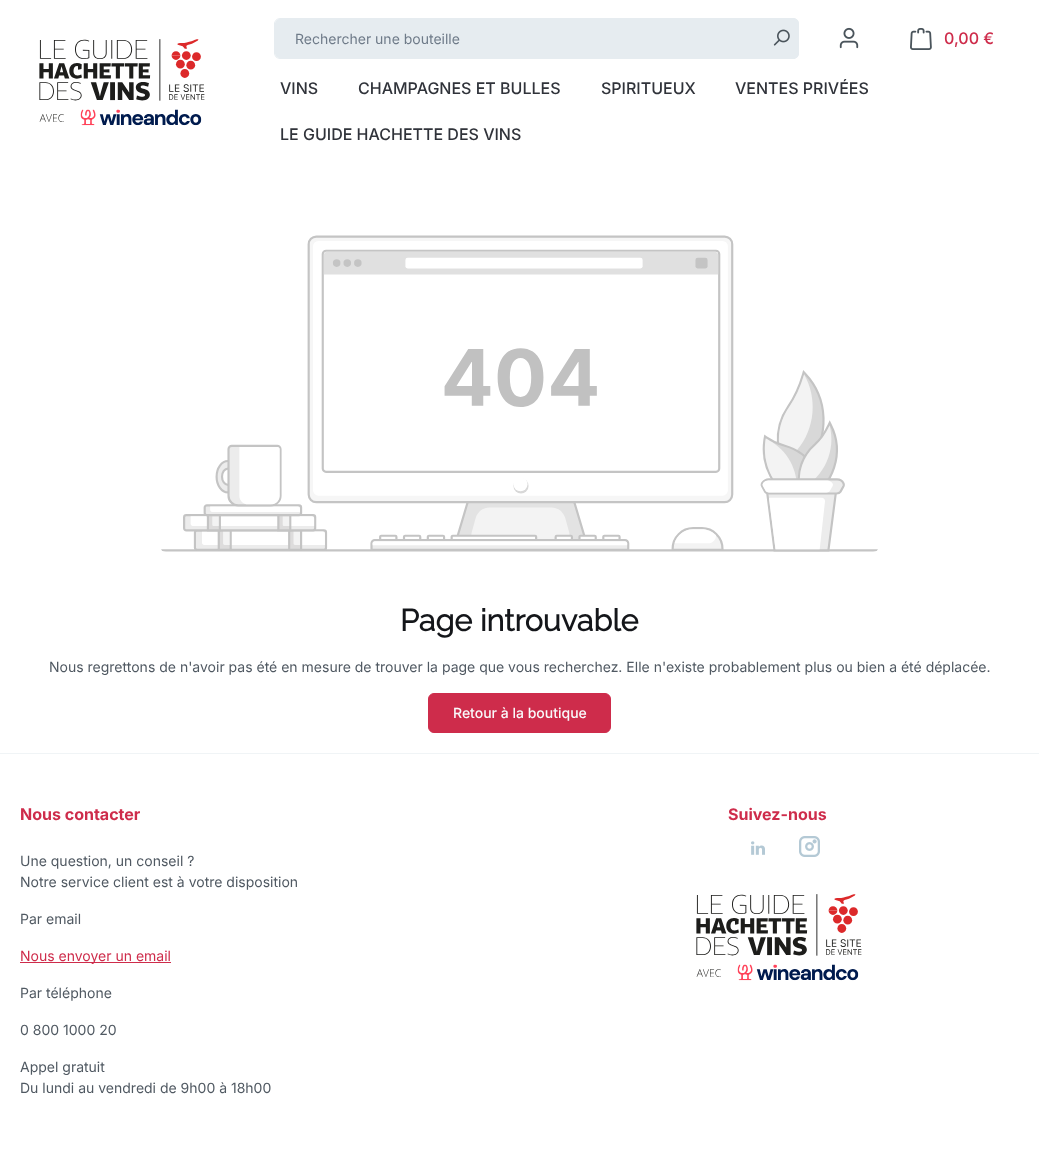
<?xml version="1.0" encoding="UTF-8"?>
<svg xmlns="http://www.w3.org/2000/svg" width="1039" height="1175">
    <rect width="100%" height="100%" fill="#FFFFFF"/>
    <image x="39" y="39" width="166" height="87" href="img_01.png"/>
    <path d="M 280 19 H 765 V 58 H 280 C 277 58 275 56 275 53 V 24 C 275 21 277 19 280 19 Z" fill="#E6ECF0"/>
    <path d="M 280 18 H 765 V 59 H 280 C 277 59 274 56 274 53 V 24 C 274 21 277 18 280 18 Z M 280 19 H 765 V 58 H 280 C 277 58 275 56 275 53 V 24 C 275 21 277 19 280 19 Z" fill="#E6ECF0" fill-rule="evenodd"/>
    <text x="295" y="44" font-family="Inter" font-size="14" fill="#6F7B89">Rechercher une bouteille</text>
    <path d="M 764 18 H 793 C 796.5 18 799 20.5 799 24 V 53 C 799 56.5 796.5 59 793 59 H 764 Z" fill="#E6ECF0"/>
    <path d="M 764 18 H 793 C 796 18 799 21 799 24 V 53 C 799 56 796 59 793 59 H 764 Z M 764 19 H 793 C 796 19 798 21 798 24 V 53 C 798 56 796 58 793 58 H 764 Z" fill="#E6ECF0" fill-rule="evenodd"/>
    <image x="773" y="29" width="17" height="17" href="img_02.png"/>
    <image x="839" y="27" width="20" height="22" href="img_03.png"/>
    <image x="910" y="28" width="22" height="22" href="img_04.png"/>
    <text x="944" y="44" font-family="Inter" font-size="16" font-weight="500" fill="#CE2C4B">0,00 €</text>
    <text x="280" y="94" font-family="Inter" font-size="16" font-weight="500" fill="#30333A">VINS</text>
    <text x="358" y="94" font-family="Inter" font-size="16" font-weight="500" fill="#30333A">CHAMPAGNES ET BULLES</text>
    <text x="601" y="94" font-family="Inter" font-size="16" font-weight="500" fill="#30333A">SPIRITUEUX</text>
    <text x="735" y="94" font-family="Inter" font-size="16" font-weight="500" fill="#30333A">VENTES PRIVÉES</text>
    <text x="280" y="140" font-family="Inter" font-size="16" font-weight="500" fill="#30333A">LE GUIDE HACHETTE DES VINS</text>
    <image x="161" y="235" width="717" height="317" href="img_05.png"/>
    <text x="400" y="631" font-family="Raleway" font-size="30.5" font-weight="700" fill="#14161A">Page introuvable</text>
    <text x="49" y="672" font-family="Inter" font-size="14" fill="#505962">Nous regrettons de n'avoir pas été en mesure de trouver la page que vous recherchez. Elle n'existe probablement plus ou bien a été déplacée.</text>
    <rect x="428.5" y="693.5" width="182" height="39" rx="5.5" fill="#CE2C4B" stroke="#CE2C4B"/>
    <text x="453" y="718" font-family="Inter" font-size="14" font-weight="500" fill="#F9FAFB">Retour à la boutique</text>
    <rect x="0" y="753" width="1039" height="1" fill="#F0F4F6"/>
    <text x="20" y="820" font-family="Inter" font-size="16" font-weight="700" fill="#CE2C4B">Nous contacter</text>
    <text font-family="Inter" font-size="14" fill="#505962">
        <tspan x="20" y="866">Une question, un conseil ?</tspan>
        <tspan x="20" y="887">Notre service client est à votre disposition</tspan>
    </text>
    <text x="20" y="924" font-family="Inter" font-size="14" fill="#505962">Par email</text>
    <rect x="20" y="962" width="151" height="1" fill="#CE2C4B"/>
    <text x="20" y="961" font-family="Inter" font-size="14" fill="#CE2C4B">Nous envoyer un email</text>
    <text x="20" y="998" font-family="Inter" font-size="14" fill="#505962">Par téléphone</text>
    <text x="20" y="1035" font-family="Inter" font-size="14" fill="#505962">0 800 1000 20</text>
    <text font-family="Inter" font-size="14" fill="#505962">
        <tspan x="20" y="1072">Appel gratuit</tspan>
        <tspan x="20" y="1093">Du lundi au vendredi de 9h00 à 18h00</tspan>
    </text>
    <text x="728" y="820" font-family="Inter" font-size="16" font-weight="700" fill="#CE2C4B">Suivez-nous</text>
    <image x="751" y="841" width="14" height="14" href="img_06.png"/>
    <image x="799" y="836" width="21" height="21" href="img_07.png"/>
    <image x="696" y="894" width="166" height="87" href="img_08.png"/>
</svg>
